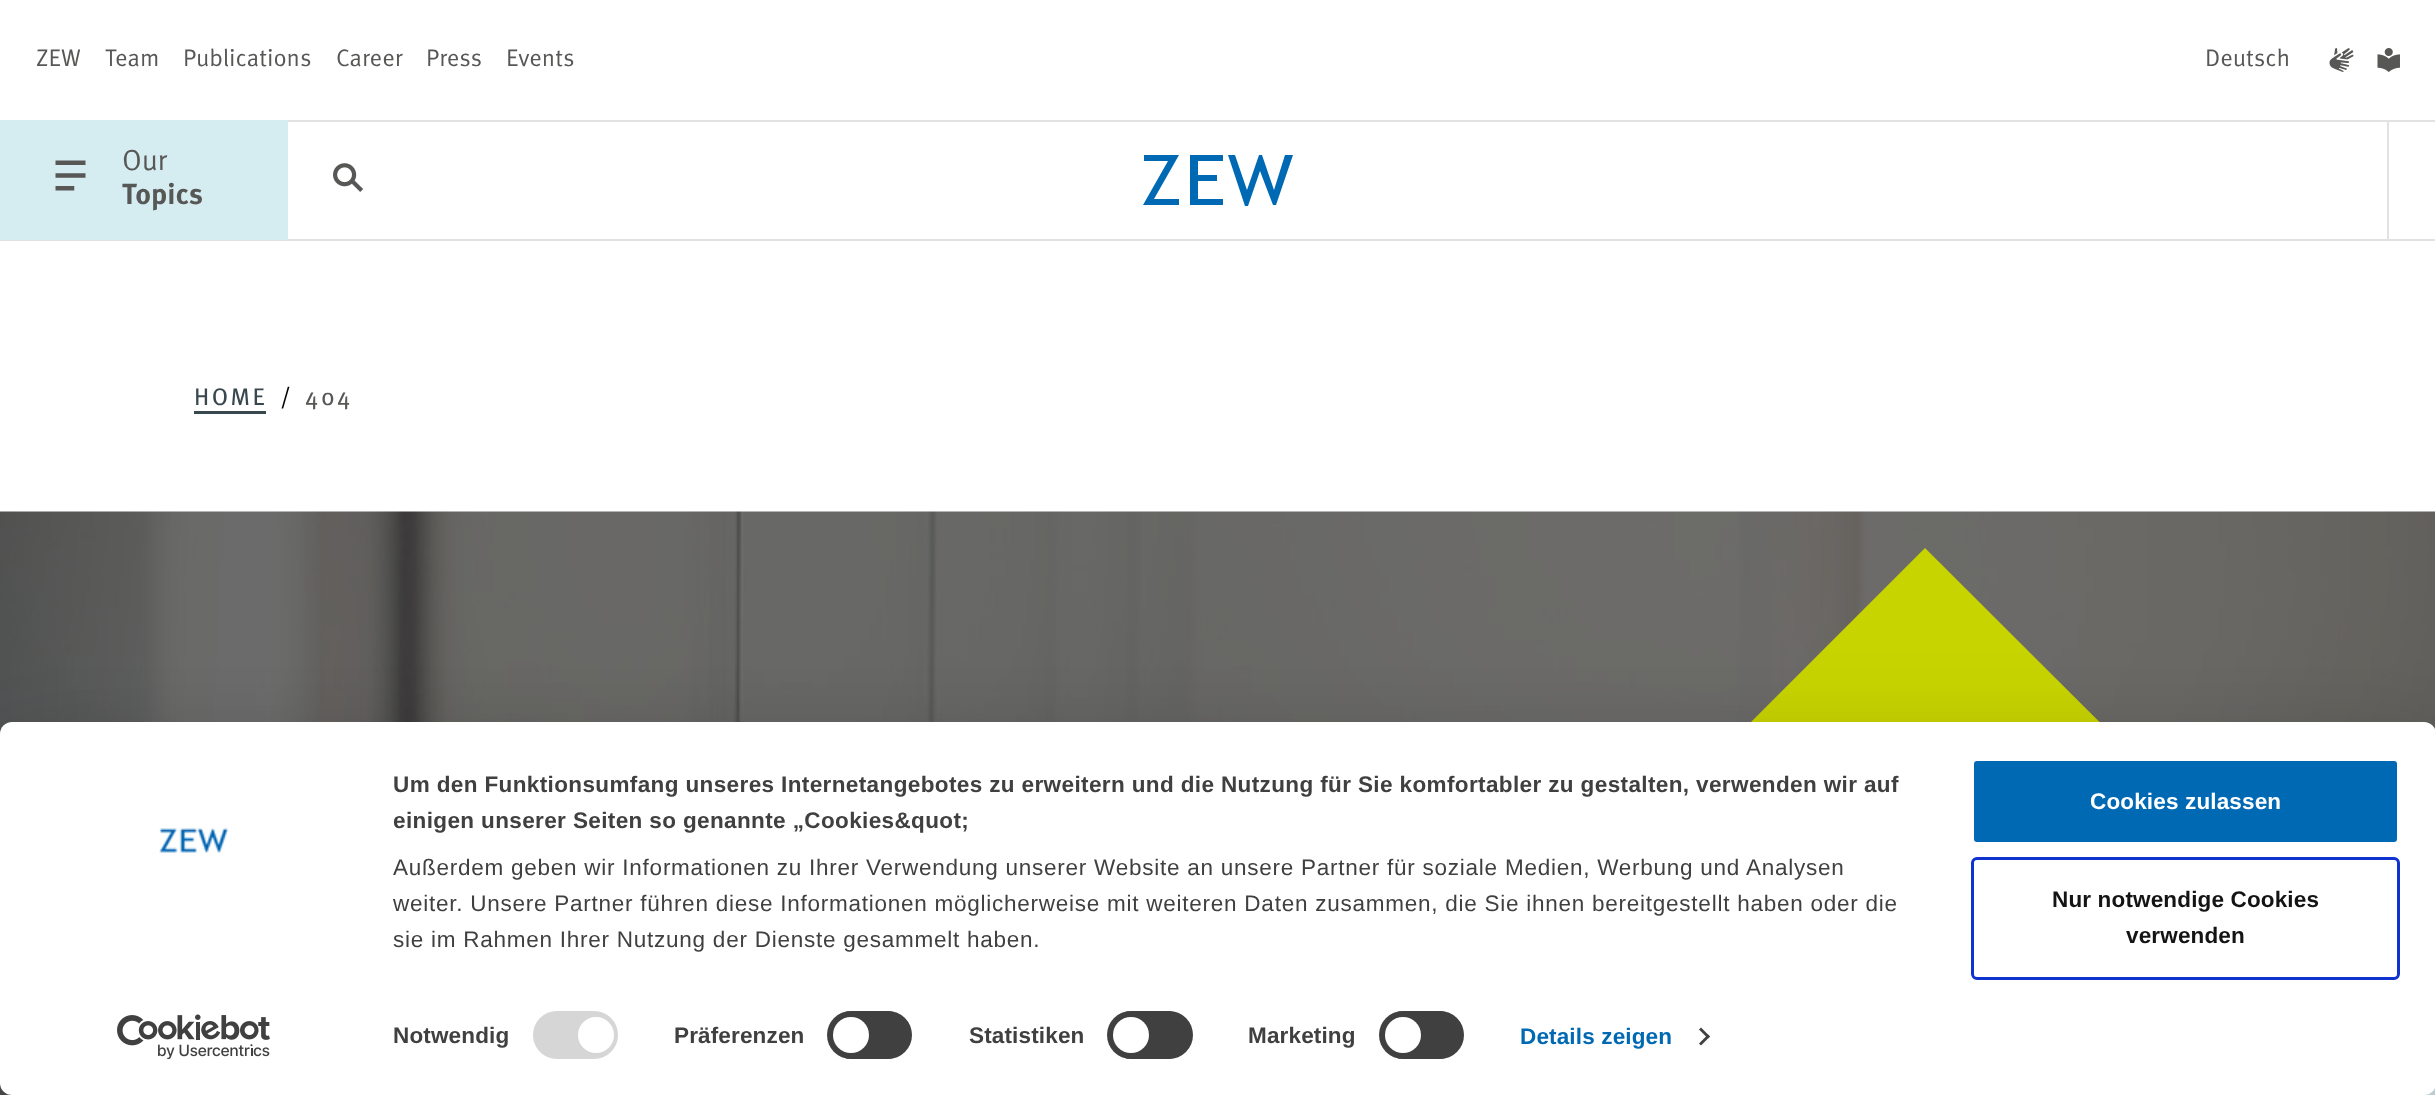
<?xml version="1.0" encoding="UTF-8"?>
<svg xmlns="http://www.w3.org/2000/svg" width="2435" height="1095">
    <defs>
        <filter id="blur1" x="-50%" y="-200%" width="200%" height="500%"><feGaussianBlur stdDeviation="52.5"/></filter>
    </defs>
    <rect width="100%" height="100%" fill="#FFFFFF"/>
    <text x="36" y="66" font-family="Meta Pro" font-size="24" fill="#575756">ZEW</text>
    <text x="105" y="66" font-family="Meta Pro" font-size="24" fill="#575756">Team</text>
    <text x="183" y="66" font-family="Meta Pro" font-size="24" fill="#575756">Publications</text>
    <text x="336" y="66" font-family="Meta Pro" font-size="24" fill="#575756">Career</text>
    <text x="426" y="66" font-family="Meta Pro" font-size="24" fill="#575756">Press</text>
    <text x="506" y="66" font-family="Meta Pro" font-size="24" fill="#575756">Events</text>
    <text x="2205" y="66" font-family="Meta Pro" font-size="24" fill="#575756">Deutsch</text>
    <image x="2329" y="48" width="25" height="24" href="img_01.png"/>
    <image x="2377" y="48" width="23" height="24" href="img_02.png"/>
    <rect x="288" y="120" width="2147" height="2" fill="#E2E2E1"/>
    <rect x="0" y="239" width="2435" height="2" fill="#E2E2E1"/>
    <rect x="0" y="120" width="288" height="120" fill="#D5ECF0"/>
    <image x="55" y="160" width="31" height="31" href="img_03.png"/>
    <text x="122" y="170" font-family="Meta Pro" font-size="29" fill="#575756">Our</text>
    <text x="122" y="204" font-family="Meta Pro" font-size="29" font-weight="700" fill="#575756">Topics</text>
    <image x="333" y="163" width="30" height="29" href="img_04.png"/>
    <path d="M 1276 205 H 1273 L 1260 171 L 1248 206 H 1245 L 1228 155 H 1235 L 1247 190 L 1259 155 H 1262 L 1274 190 L 1285 155 H 1293 Z" fill="#0069B4"/>
    <path d="M 1198 161 V 175 H 1217 V 181 H 1198 V 199 H 1223 V 205 H 1190 V 155 H 1223 V 161 Z" fill="#0069B4"/>
    <path d="M 1143 205 L 1168 161 H 1144 V 155 H 1179 L 1154 199 H 1179 V 205 Z" fill="#0069B4"/>
    <rect x="2387" y="122" width="2" height="117" fill="#E2E2E1"/>
    <text x="194" y="405" font-family="'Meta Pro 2'" font-size="24" letter-spacing="2.5" fill="#39484F">HOME</text>
    <path d="M 194 411 V 414 H 266 V 390 V 411 Z" fill="#39484F"/>
    <text x="280" y="405" font-family="'Meta Pro 2'" font-size="24" letter-spacing="2.5" fill="#000000">/</text>
    <text x="305" y="405" font-family="'Meta Pro 2'" font-size="24" letter-spacing="2.5" fill="#575756">404</text>
    <image x="0" y="511" width="2435" height="584" href="img_05.png"/>
    <path d="M 1925 548 L 2243 865 L 1925 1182 L 1608 865 Z" fill="#C8D400"/>
    <path d="M 2265 887 L 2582 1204 L 2265 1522 L 1947 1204 Z" fill="#D5ECF0"/>
    <rect x="0" y="767" width="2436" height="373" rx="12" fill="#000000" fill-opacity="0.3" filter="url(#blur1)"/>
    <rect x="0" y="722" width="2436" height="373" rx="12" fill="#FFFFFF"/>
    <image x="159" y="828" width="69" height="25" href="img_06.png"/>
    <image x="117" y="1014" width="153" height="45" href="img_07.png"/>
    <text font-family="Liberation Sans" font-size="22.5" font-weight="700" letter-spacing="0.38" fill="#404040">
        <tspan x="393" y="792">Um den Funktionsumfang unseres Internetangebotes zu erweitern und die Nutzung für Sie komfortabler zu gestalten, verwenden wir auf</tspan>
        <tspan x="393" y="828">einigen unserer Seiten so genannte „Cookies&amp;quot;</tspan>
    </text>
    <text font-family="Liberation Sans" font-size="22.5" letter-spacing="0.75" fill="#404040">
        <tspan x="393" y="875">Außerdem geben wir Informationen zu Ihrer Verwendung unserer Website an unsere Partner für soziale Medien, Werbung und Analysen</tspan>
        <tspan x="393" y="911">weiter. Unsere Partner führen diese Informationen möglicherweise mit weiteren Daten zusammen, die Sie ihnen bereitgestellt haben oder die</tspan>
        <tspan x="393" y="947">sie im Rahmen Ihrer Nutzung der Dienste gesammelt haben.</tspan>
    </text>
    <text x="393" y="1043" font-family="Liberation Sans" font-size="22.5" font-weight="700" letter-spacing="0.15" fill="#404040">Notwendig</text>
    <rect x="533" y="1011" width="85" height="48" rx="24" fill="#D6D6D6"/>
    <circle cx="596" cy="1035" r="18" fill="#FFFFFF"/>
    <text x="674" y="1043" font-family="Liberation Sans" font-size="22.5" font-weight="700" letter-spacing="0.15" fill="#404040">Präferenzen</text>
    <rect x="846" y="1012" width="46" height="46" rx="2" fill="none" stroke="#767676" stroke-width="2"/>
    <rect x="827" y="1011" width="85" height="48" rx="24" fill="#404040"/>
    <circle cx="851" cy="1035" r="18" fill="#FFFFFF"/>
    <text x="969" y="1043" font-family="Liberation Sans" font-size="22.5" font-weight="700" letter-spacing="0.15" fill="#404040">Statistiken</text>
    <rect x="1126" y="1012" width="46" height="46" rx="2" fill="none" stroke="#767676" stroke-width="2"/>
    <rect x="1107" y="1011" width="86" height="48" rx="24" fill="#404040"/>
    <circle cx="1131" cy="1035" r="18" fill="#FFFFFF"/>
    <text x="1248" y="1043" font-family="Liberation Sans" font-size="22.5" font-weight="700" letter-spacing="0.15" fill="#404040">Marketing</text>
    <rect x="1398" y="1012" width="46" height="46" rx="2" fill="none" stroke="#767676" stroke-width="2"/>
    <rect x="1379" y="1011" width="85" height="48" rx="24" fill="#404040"/>
    <circle cx="1403" cy="1035" r="18" fill="#FFFFFF"/>
    <text x="1520" y="1044" font-family="Liberation Sans" font-size="22.5" font-weight="700" letter-spacing="0.15" fill="#0069B4">Details zeigen</text>
    <path d="M 1701 1027.5 L 1710 1036.5 L 1708 1038.5 L 1699 1029.5 Z" fill="#404040"/>
    <path d="M 1708 1034.5 L 1710 1036.5 L 1701 1045.5 L 1699 1043.5 Z" fill="#404040"/>
    <rect x="1972.5" y="759.5" width="426" height="84" rx="4.5" fill="#0069B4" stroke="#FFFFFF" stroke-width="3"/>
    <text x="2090" y="809" font-family="Liberation Sans" font-size="22.5" font-weight="700" letter-spacing="0.15" fill="#FFFFFF">Cookies zulassen</text>
    <rect x="1972.5" y="858.5" width="426" height="120" rx="4.5" fill="none" stroke="#1032CF" stroke-width="3"/>
    <text x="2052" y="907" font-family="Liberation Sans" font-size="22.5" font-weight="700" letter-spacing="0.15" fill="#141414">Nur notwendige Cookies</text>
    <text x="2126" y="943" font-family="Liberation Sans" font-size="22.5" font-weight="700" letter-spacing="0.15" fill="#141414">verwenden</text>
</svg>
